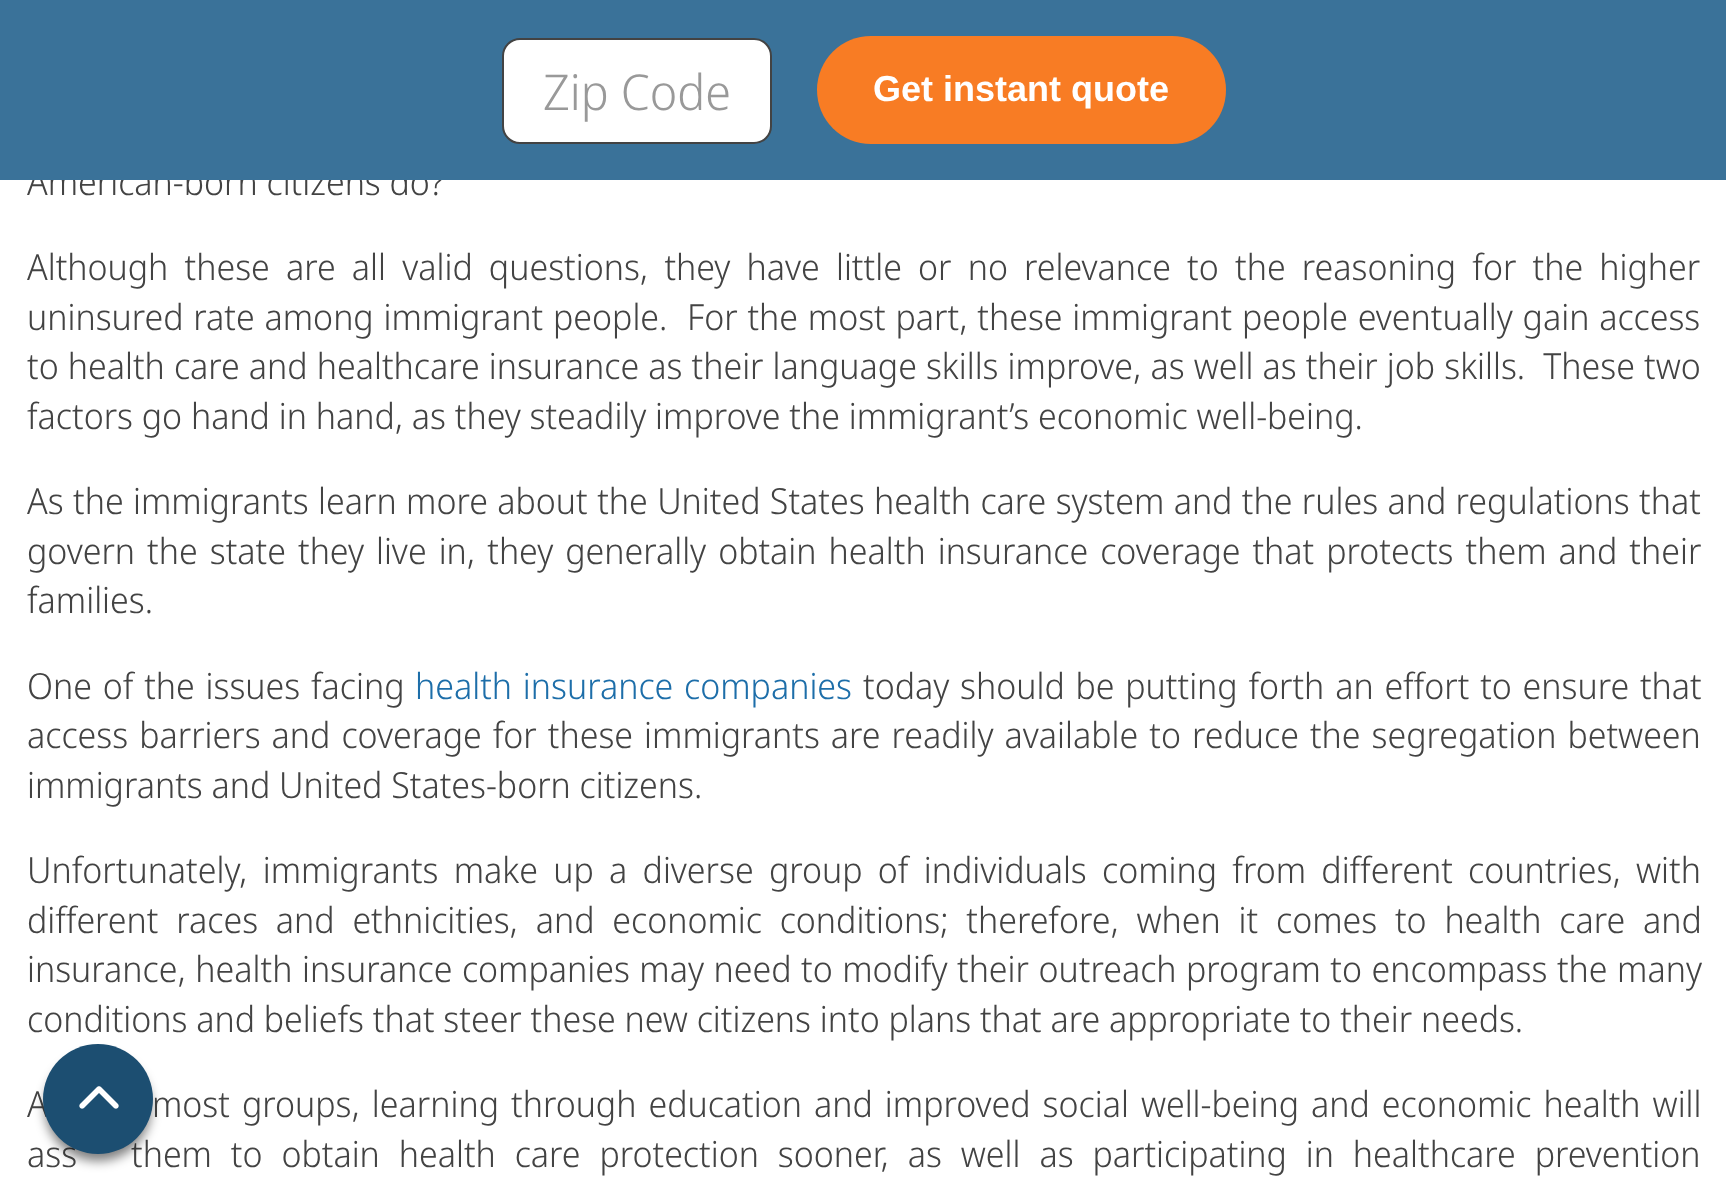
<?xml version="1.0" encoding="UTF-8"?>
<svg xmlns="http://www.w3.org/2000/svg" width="1726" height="1197">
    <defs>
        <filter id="blur1" x="-50%" y="-200%" width="200%" height="500%"><feGaussianBlur stdDeviation="5.5"/></filter>
    </defs>
    <rect width="100%" height="100%" fill="#FFFFFF"/>
    <text x="27" y="195" font-family="Noto Sans Display" font-size="36" font-weight="300" fill="#434343">American-born citizens do?</text>
    <rect x="0" y="0" width="1726" height="180" fill="#3A7299"/>
    <rect x="503" y="39" width="268" height="104" rx="17" fill="#FFFFFF" stroke="#434343" stroke-width="2"/>
    <text x="543" y="110" font-family="Noto Sans Display" font-size="49.5" font-weight="300" fill="#999999">Zip Code</text>
    <rect x="817" y="36" width="409" height="108" rx="54" fill="#F87C24"/>
    <text x="873" y="101" font-family="Liberation Sans" font-size="36" font-weight="700" fill="#FFFFFF">Get instant quote</text>
    <text font-family="Noto Sans Display" font-size="36" font-weight="300" fill="#434343" xml:space="preserve"><tspan x="27" y="280" word-spacing="7.4">Although these are all valid questions, they have little or no relevance to the reasoning for the higher</tspan><tspan x="27" y="330" word-spacing="1">uninsured rate among immigrant people.  For the most part, these immigrant people eventually gain access</tspan><tspan x="27" y="379" word-spacing="0.3">to health care and healthcare insurance as their language skills improve, as well as their job skills.  These two</tspan><tspan x="27" y="429">factors go hand in hand, as they steadily improve the immigrant’s economic well-being.</tspan></text>
    <text font-family="Noto Sans Display" font-size="36" font-weight="300" fill="#434343">
        <tspan x="27" y="514" word-spacing="0.6">As the immigrants learn more about the United States health care system and the rules and regulations that</tspan>
        <tspan x="27" y="564" word-spacing="3.25">govern the state they live in, they generally obtain health insurance coverage that protects them and their</tspan>
        <tspan x="27" y="613">families.</tspan>
    </text>
    <text x="27" y="699" word-spacing="2" font-family="Noto Sans Display" font-size="36" font-weight="300" fill="#434343">One of the issues facing</text>
    <text x="415" y="699" word-spacing="2" font-family="Noto Sans Display" font-size="36" font-weight="300" fill="#1D6EA9">health insurance companies</text>
    <text x="863" y="699" word-spacing="2" font-family="Noto Sans Display" font-size="36" font-weight="300" fill="#434343">today should be putting forth an effort to ensure that</text>
    <text font-family="Noto Sans Display" font-size="36" font-weight="300" fill="#434343">
        <tspan x="27" y="748" word-spacing="2.25">access barriers and coverage for these immigrants are readily available to reduce the segregation between</tspan>
        <tspan x="27" y="798">immigrants and United States-born citizens.</tspan>
    </text>
    <text font-family="Noto Sans Display" font-size="36" font-weight="300" fill="#434343">
        <tspan x="27" y="883" word-spacing="6.5">Unfortunately, immigrants make up a diverse group of individuals coming from different countries, with</tspan>
        <tspan x="27" y="933" word-spacing="9">different races and ethnicities, and economic conditions; therefore, when it comes to health care and</tspan>
        <tspan x="27" y="982" word-spacing="0.75">insurance, health insurance companies may need to modify their outreach program to encompass the many</tspan>
        <tspan x="27" y="1032">conditions and beliefs that steer these new citizens into plans that are appropriate to their needs.</tspan>
    </text>
    <text x="27" y="1117" word-spacing="3.25" font-family="Noto Sans Display" font-size="36" font-weight="300" fill="#434343">A</text>
    <text x="152" y="1117" word-spacing="3.25" font-family="Noto Sans Display" font-size="36" font-weight="300" fill="#434343">most groups, learning through education and improved social well-being and economic health will</text>
    <text x="27" y="1167" word-spacing="10.1" font-family="Noto Sans Display" font-size="36" font-weight="300" fill="#434343">ass</text>
    <text x="131" y="1167" word-spacing="10.1" font-family="Noto Sans Display" font-size="36" font-weight="300" fill="#434343">them to obtain health care protection sooner, as well as participating in healthcare prevention</text>
    <rect x="45" y="1055" width="106" height="106" rx="53" fill="#000000" fill-opacity="0.5" filter="url(#blur1)"/>
    <circle cx="98" cy="1099" r="55" fill="#1C4E71"/>
    <image x="79" y="1086" width="40" height="23" href="img_01.png"/>
</svg>
